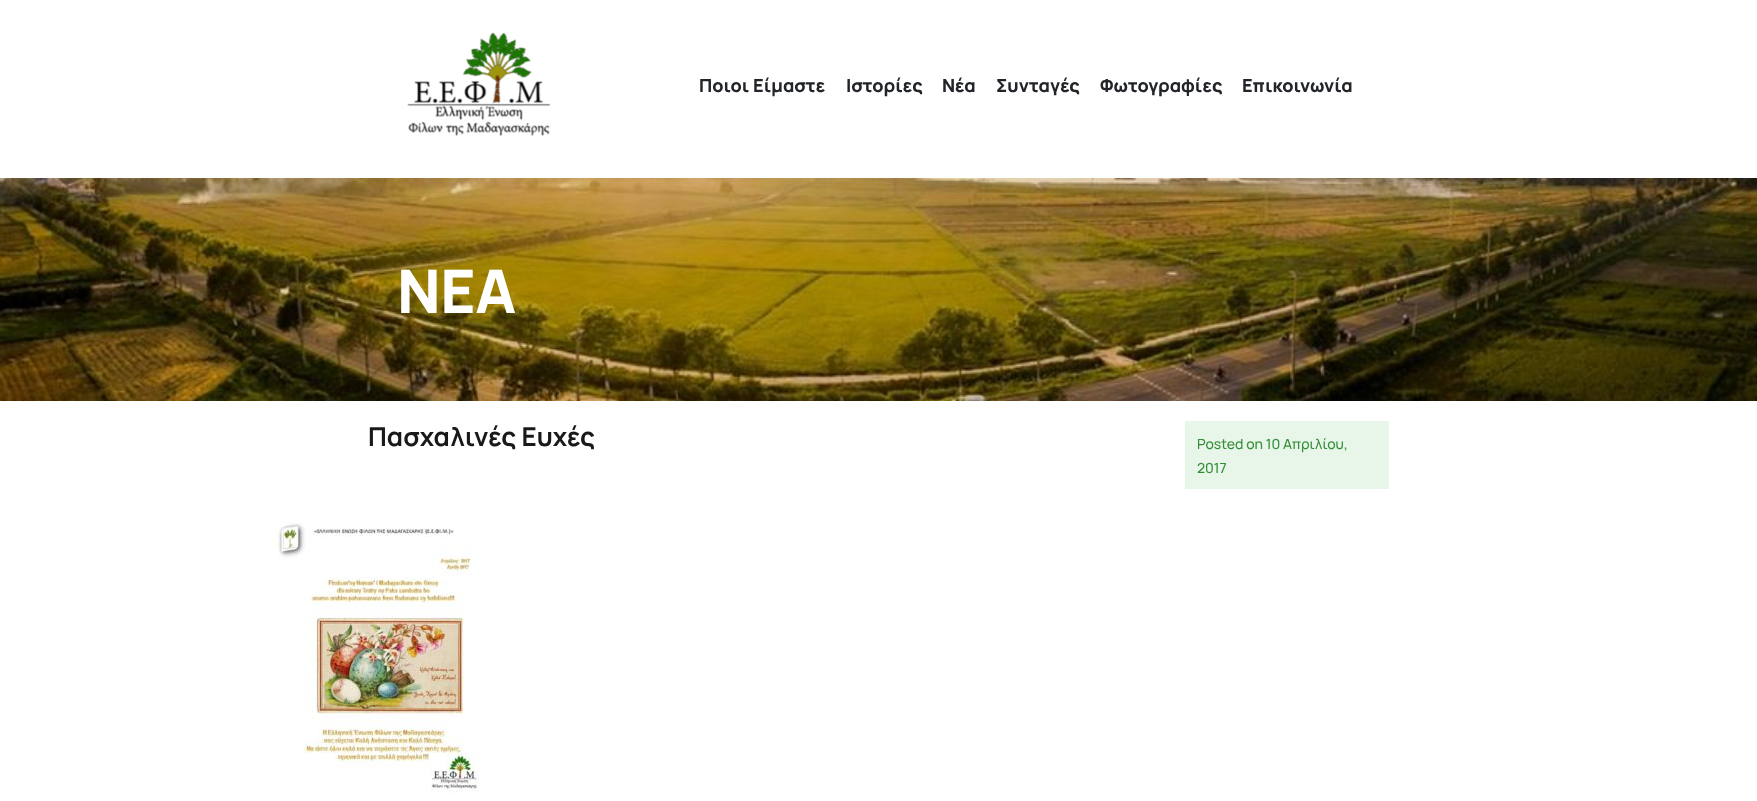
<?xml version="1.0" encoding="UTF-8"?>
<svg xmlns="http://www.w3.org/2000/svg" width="1757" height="801">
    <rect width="100%" height="100%" fill="#FFFFFF"/>
    <image x="407" y="32" width="144" height="104" href="img_01.png"/>
    <text x="699" y="92" font-family="Manrope" font-size="18" font-weight="800" fill="#212529">Ποιοι Είμαστε</text>
    <text x="846" y="92" font-family="Manrope" font-size="18" font-weight="800" fill="#212529">Ιστορίες</text>
    <text x="942" y="92" font-family="Manrope" font-size="18" font-weight="800" fill="#212529">Νέα</text>
    <text x="996" y="92" font-family="Manrope" font-size="18" font-weight="800" fill="#212529">Συνταγές</text>
    <text x="1100" y="92" font-family="Manrope" font-size="18" font-weight="800" fill="#212529">Φωτογραφίες</text>
    <text x="1242" y="92" font-family="Manrope" font-size="18" font-weight="800" fill="#212529">Επικοινωνία</text>
    <image x="0" y="178" width="1757" height="223" href="img_02.png"/>
    <text x="397" y="313" font-family="Manrope" font-size="60" font-weight="800" letter-spacing="-0.5" fill="#FFFFFF">ΝΕΑ</text>
    <text x="368" y="446" font-family="Manrope" font-size="26" font-weight="700" fill="#191919">Πασχαλινές Ευχές</text>
    <rect x="1185" y="421" width="204" height="68" fill="#E8F5E9"/>
    <text font-family="Manrope" font-size="14" font-weight="500" fill="#348E38">
        <tspan x="1197" y="449">Posted on 10 Απριλίου,</tspan>
        <tspan x="1197" y="473">2017</tspan>
    </text>
    <image x="271" y="523" width="208" height="270" href="img_03.png"/>
</svg>
